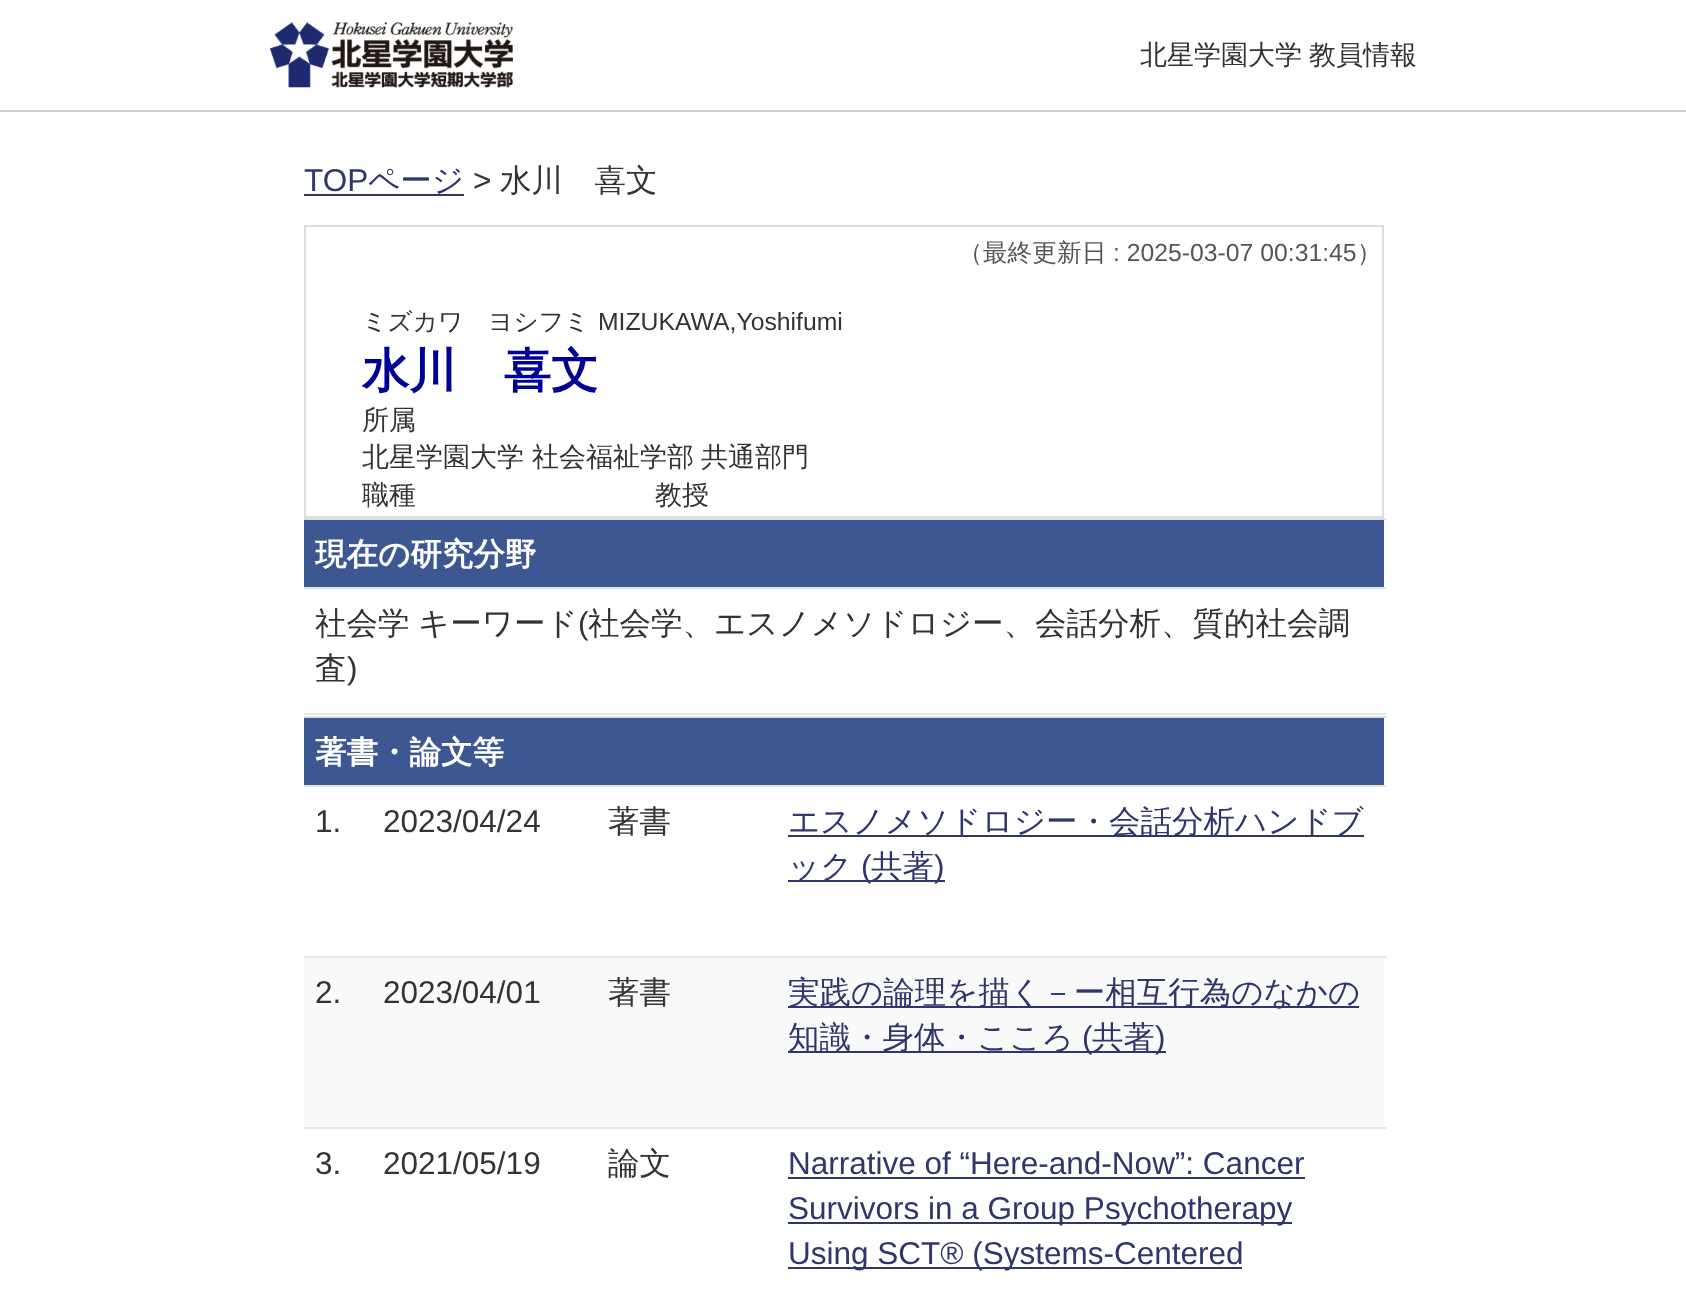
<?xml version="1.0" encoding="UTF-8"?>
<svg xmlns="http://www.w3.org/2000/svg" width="1686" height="1296">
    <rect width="100%" height="100%" fill="#FFFFFF"/>
    <rect x="0" y="110" width="1686" height="2" fill="#CCCCCC"/>
    <image x="270" y="22" width="243" height="66" href="img_01.png"/>
    <text x="1140" y="64" word-spacing="-1" font-family="WenQuanYi Zen Hei" font-size="27" font-weight="500" fill="#333333">北星学園大学 教員情報</text>
    <text x="304" y="191" font-family="Liberation Sans" font-size="31.5" fill="#30356C">TOP</text>
    <rect x="304" y="194" width="160" height="2" fill="#30356C"/>
    <text x="368" y="191" font-family="WenQuanYi Zen Hei" font-size="31.5" font-weight="500" fill="#30356C">ページ</text>
    <text x="473" y="191" font-family="Liberation Sans" font-size="31.5" fill="#333333">&gt;</text>
    <text x="500" y="191" font-family="WenQuanYi Zen Hei" font-size="31.5" font-weight="500" fill="#333333">水川　喜文</text>
    <rect x="305" y="226" width="1078" height="291" fill="none" stroke="#DDDDDD" stroke-width="2"/>
    <text x="958" y="261" font-family="WenQuanYi Zen Hei" font-size="24.75" font-weight="500" fill="#555555">（最終更新日</text>
    <text x="1113" y="261" font-family="Liberation Sans" font-size="24.75" fill="#555555">: 2025-03-07 00:31:45</text>
    <text x="1357" y="261" font-family="WenQuanYi Zen Hei" font-size="24.75" font-weight="500" fill="#555555">）</text>
    <text x="362" y="330" font-family="WenQuanYi Zen Hei" font-size="24.75" font-weight="500" fill="#333333">ミズカワ　ヨシフミ</text>
    <text x="598" y="330" font-family="Liberation Sans" font-size="24.75" fill="#333333">MIZUKAWA,Yoshifumi</text>
    <text x="362" y="387" font-family="WenQuanYi Zen Hei" font-size="47.25" font-weight="700" fill="#000099">水川　喜文</text>
    <text font-family="WenQuanYi Zen Hei" font-size="27" font-weight="500" fill="#333333">
        <tspan x="362" y="429">所属</tspan>
        <tspan x="362" y="466">北星学園大学</tspan>
    </text>
    <text x="532" y="466" word-spacing="-1" font-family="WenQuanYi Zen Hei" font-size="27" font-weight="500" fill="#333333">社会福祉学部 共通部門</text>
    <text x="362" y="504" font-family="WenQuanYi Zen Hei" font-size="27" font-weight="500" fill="#333333">職種</text>
    <text x="655" y="504" font-family="WenQuanYi Zen Hei" font-size="27" font-weight="500" fill="#333333">教授</text>
    <rect x="304" y="520" width="1080" height="67" fill="#3D5793"/>
    <rect x="304" y="518" width="1082" height="2" fill="#DDDDDD"/>
    <rect x="304" y="587" width="1082" height="2" fill="#E5E5E5"/>
    <text x="315" y="565" font-family="WenQuanYi Zen Hei" font-size="31.5" font-weight="700" fill="#FFFFFF">現在の研究分野</text>
    <rect x="304" y="713" width="1082" height="2" fill="#E5E5E5"/>
    <text x="315" y="634" word-spacing="-1" font-family="WenQuanYi Zen Hei" font-size="31.5" font-weight="500" fill="#333333">社会学 キーワード</text>
    <text x="578" y="634" font-family="Liberation Sans" font-size="31.5" fill="#333333">(</text>
    <text x="588" y="634" font-family="WenQuanYi Zen Hei" font-size="31.5" font-weight="500" fill="#333333">社会学、エスノメソドロジー、会話分析、質的社会調</text>
    <text x="315" y="679" font-family="WenQuanYi Zen Hei" font-size="31.5" font-weight="500" fill="#333333">査</text>
    <text x="347" y="679" font-family="Liberation Sans" font-size="31.5" fill="#333333">)</text>
    <rect x="304" y="718" width="1080" height="67" fill="#3D5793"/>
    <rect x="304" y="716" width="1082" height="2" fill="#DDDDDD"/>
    <rect x="304" y="785" width="1082" height="2" fill="#E5E5E5"/>
    <text x="315" y="763" font-family="WenQuanYi Zen Hei" font-size="31.5" font-weight="700" fill="#FFFFFF">著書・論文等</text>
    <text x="315" y="832" font-family="Liberation Sans" font-size="31.5" fill="#333333">1.</text>
    <text x="383" y="832" font-family="Liberation Sans" font-size="31.5" fill="#333333">2023/04/24</text>
    <text x="608" y="832" font-family="WenQuanYi Zen Hei" font-size="31.5" font-weight="500" fill="#333333">著書</text>
    <rect x="304" y="956" width="1082" height="2" fill="#E5E5E5"/>
    <rect x="788" y="835" width="576" height="2" fill="#30356C"/>
    <text x="788" y="832" font-family="WenQuanYi Zen Hei" font-size="31.5" font-weight="500" fill="#30356C">エスノメソドロジー・会話分析ハンドブ</text>
    <rect x="788" y="880" width="157" height="2" fill="#30356C"/>
    <text x="788" y="877" font-family="WenQuanYi Zen Hei" font-size="31.5" font-weight="500" fill="#30356C">ック</text>
    <text x="861" y="877" font-family="Liberation Sans" font-size="31.5" fill="#30356C">(</text>
    <text x="871" y="877" font-family="WenQuanYi Zen Hei" font-size="31.5" font-weight="500" fill="#30356C">共著</text>
    <text x="934" y="877" font-family="Liberation Sans" font-size="31.5" fill="#30356C">)</text>
    <rect x="304" y="958" width="1080" height="169" fill="#F9F9F9"/>
    <text x="315" y="1003" font-family="Liberation Sans" font-size="31.5" fill="#333333">2.</text>
    <text x="383" y="1003" font-family="Liberation Sans" font-size="31.5" fill="#333333">2023/04/01</text>
    <text x="608" y="1003" font-family="WenQuanYi Zen Hei" font-size="31.5" font-weight="500" fill="#333333">著書</text>
    <rect x="304" y="1127" width="1082" height="2" fill="#E5E5E5"/>
    <rect x="788" y="1006" width="571" height="2" fill="#30356C"/>
    <text x="788" y="1003" font-family="WenQuanYi Zen Hei" font-size="31.5" font-weight="500" fill="#30356C">実践の論理を描く－ー相互行為のなかの</text>
    <rect x="788" y="1051" width="378" height="2" fill="#30356C"/>
    <text x="788" y="1048" font-family="WenQuanYi Zen Hei" font-size="31.5" font-weight="500" fill="#30356C">知識・身体・こころ</text>
    <text x="1082" y="1048" font-family="Liberation Sans" font-size="31.5" fill="#30356C">(</text>
    <text x="1092" y="1048" font-family="WenQuanYi Zen Hei" font-size="31.5" font-weight="500" fill="#30356C">共著</text>
    <text x="1155" y="1048" font-family="Liberation Sans" font-size="31.5" fill="#30356C">)</text>
    <text x="315" y="1174" font-family="Liberation Sans" font-size="31.5" fill="#333333">3.</text>
    <text x="383" y="1174" font-family="Liberation Sans" font-size="31.5" fill="#333333">2021/05/19</text>
    <text x="608" y="1174" font-family="WenQuanYi Zen Hei" font-size="31.5" font-weight="500" fill="#333333">論文</text>
    <text x="788" y="1174" font-family="Liberation Sans" font-size="31.5" fill="#30356C">Narrative of “Here-and-Now”: Cancer</text>
    <rect x="788" y="1177" width="517" height="2" fill="#30356C"/>
    <rect x="788" y="1222" width="504" height="2" fill="#30356C"/>
    <text x="788" y="1219" font-family="Liberation Sans" font-size="31.5" fill="#30356C">Survivors in a Group Psychotherapy</text>
    <rect x="788" y="1267" width="454" height="2" fill="#30356C"/>
    <text x="788" y="1264" font-family="Liberation Sans" font-size="31.5" fill="#30356C">Using SCT® (Systems-Centered</text>
</svg>
